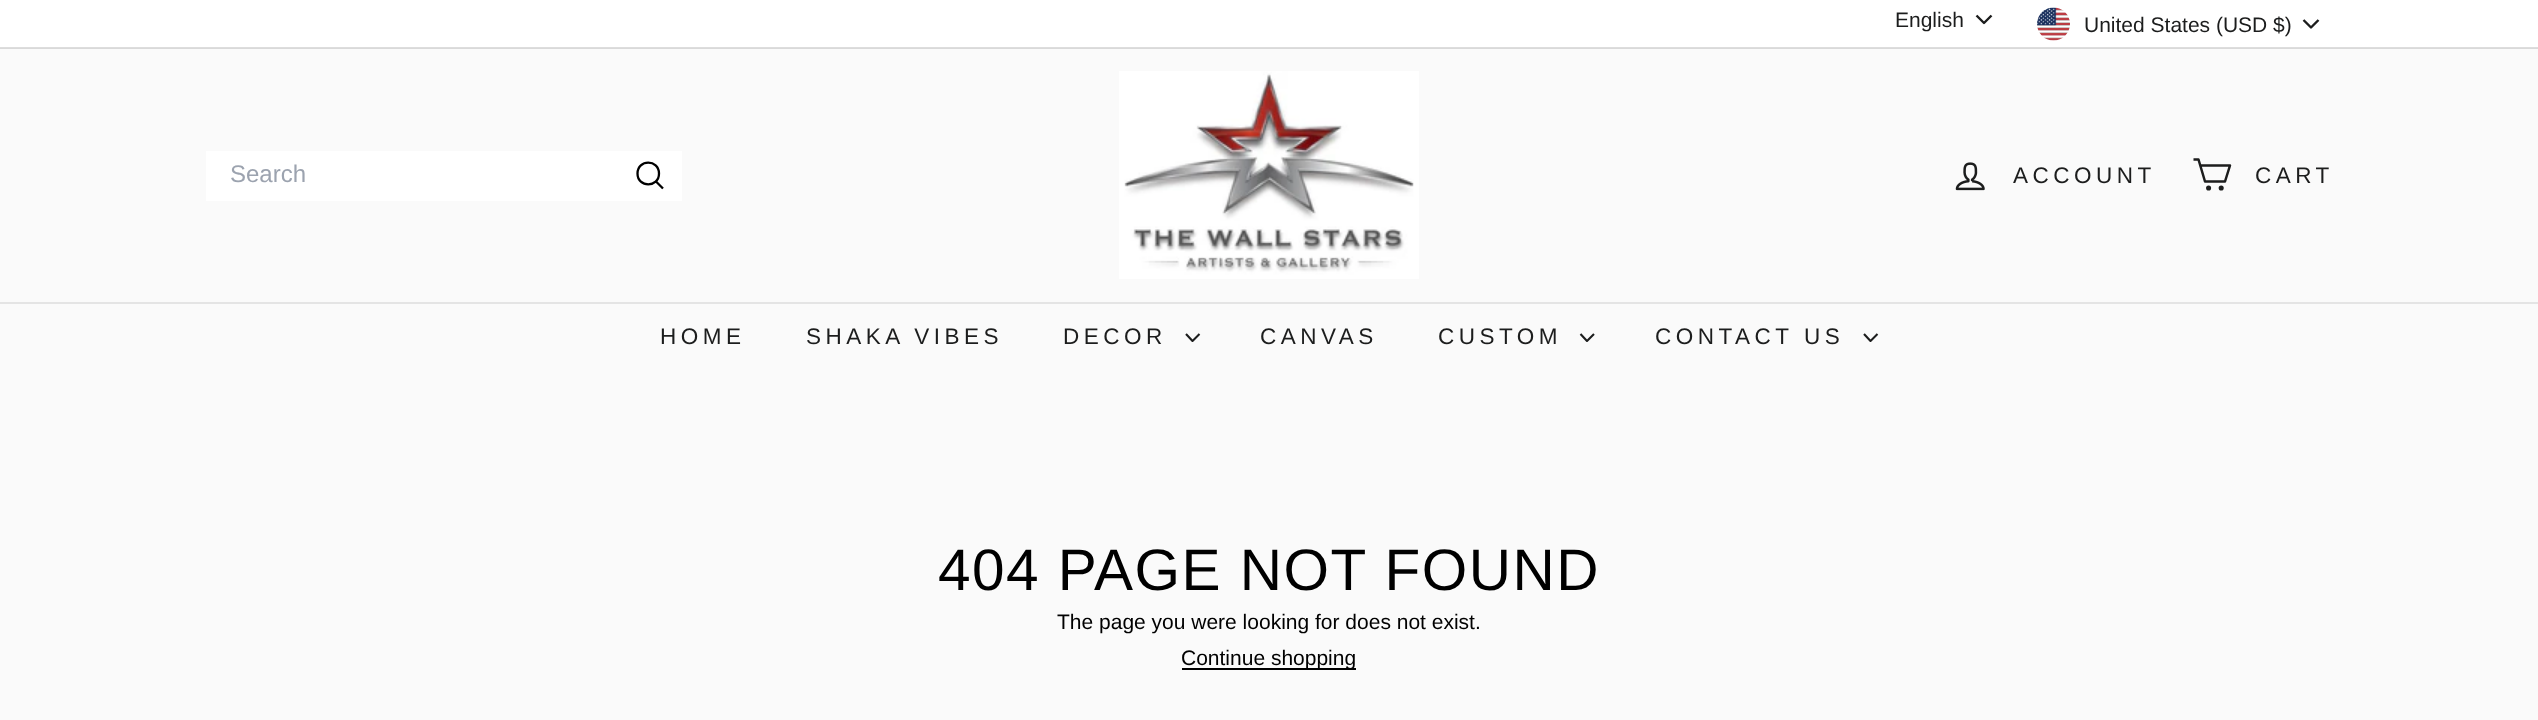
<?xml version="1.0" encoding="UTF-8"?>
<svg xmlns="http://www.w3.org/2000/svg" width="2538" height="720">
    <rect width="100%" height="100%" fill="#FAFAFA"/>
    <rect x="0" y="48" width="2538" height="1" fill="#D9D9D9"/>
    <rect x="0" y="0" width="2538" height="47" fill="#FFFFFF"/>
    <rect x="0" y="47" width="2538" height="1" fill="#DDDDDD"/>
    <text x="1895" y="27" font-family="Liberation Sans" font-size="21" fill="#1C1D1D">English</text>
    <path d="M 1976.5 15.5 L 1984 23 L 1991.5 15.5" fill="none" stroke="#1C1D1D" stroke-width="2.4" stroke-linejoin="round"/>
    <image x="2037" y="7" width="33" height="34" href="img_01.png"/>
    <text x="2084" y="32" font-family="Liberation Sans" font-size="21" fill="#1C1D1D">United States (USD $)</text>
    <path d="M 2303.5 20 L 2311 27.5 L 2318.5 20" fill="none" stroke="#1C1D1D" stroke-width="2.4" stroke-linejoin="round"/>
    <rect x="206" y="151" width="476" height="50" fill="#FFFFFF"/>
    <text x="230" y="182" font-family="Liberation Sans" font-size="24" fill="#9CA3AF">Search</text>
    <path d="M 659 173.5 C 659 188 637.5 188 637.5 173.5 C 637.5 159 659 159 659 173.5 M 663 188.5 L 656 181.5" fill="none" stroke="#000000" stroke-width="2.3" stroke-linejoin="round"/>
    <image x="1119" y="71" width="300" height="208" href="img_02.png"/>
    <image x="1955" y="162" width="30" height="29" href="img_03.png"/>
    <text x="2013" y="183" font-family="Liberation Sans" font-size="22.5" letter-spacing="4.5" fill="#1C1D1D">ACCOUNT</text>
    <path d="M 2200.5 165.5 H 2230 L 2225 181.5 H 2205 L 2198.5 159.5 H 2193.5" fill="none" stroke="#1C1D1D" stroke-width="2.5" stroke-linejoin="round"/>
    <circle cx="2208.6" cy="188" r="1.3" fill="none" stroke="#1C1D1D" stroke-width="2.5"/>
    <circle cx="2221.2" cy="188" r="1.3" fill="none" stroke="#1C1D1D" stroke-width="2.5"/>
    <text x="2255" y="183" font-family="Liberation Sans" font-size="22.5" letter-spacing="4.5" fill="#1C1D1D">CART</text>
    <rect x="0" y="302" width="2538" height="2" fill="#E4E4E4"/>
    <text x="660" y="344" font-family="Liberation Sans" font-size="22.5" letter-spacing="4.5" fill="#1C1D1D">HOME</text>
    <text x="806" y="344" font-family="Liberation Sans" font-size="22.5" letter-spacing="4.5" fill="#1C1D1D">SHAKA VIBES</text>
    <text x="1063" y="344" font-family="Liberation Sans" font-size="22.5" letter-spacing="4.5" fill="#1C1D1D">DECOR</text>
    <path d="M 1186 334 L 1192.5 341 L 1199.5 334" fill="none" stroke="#1C1D1D" stroke-width="2.1" stroke-linejoin="round"/>
    <text x="1260" y="344" font-family="Liberation Sans" font-size="22.5" letter-spacing="4.5" fill="#1C1D1D">CANVAS</text>
    <text x="1438" y="344" font-family="Liberation Sans" font-size="22.5" letter-spacing="4.5" fill="#1C1D1D">CUSTOM</text>
    <path d="M 1580.5 334 L 1587 341 L 1594 334" fill="none" stroke="#1C1D1D" stroke-width="2.1" stroke-linejoin="round"/>
    <text x="1655" y="344" font-family="Liberation Sans" font-size="22.5" letter-spacing="4.5" fill="#1C1D1D">CONTACT US</text>
    <path d="M 1864 334 L 1870.5 341 L 1877.5 334" fill="none" stroke="#1C1D1D" stroke-width="2.1" stroke-linejoin="round"/>
    <text x="938" y="590" font-family="Liberation Sans" font-size="58.5" letter-spacing="1.5" fill="#000000">404 PAGE NOT FOUND</text>
    <text x="1057" y="629" font-family="Liberation Sans" font-size="21" fill="#000000">The page you were looking for does not exist.</text>
    <rect x="1182" y="668" width="174" height="2" fill="#000000"/>
    <text x="1181" y="665" font-family="Liberation Sans" font-size="21" fill="#000000">Continue shopping</text>
</svg>
